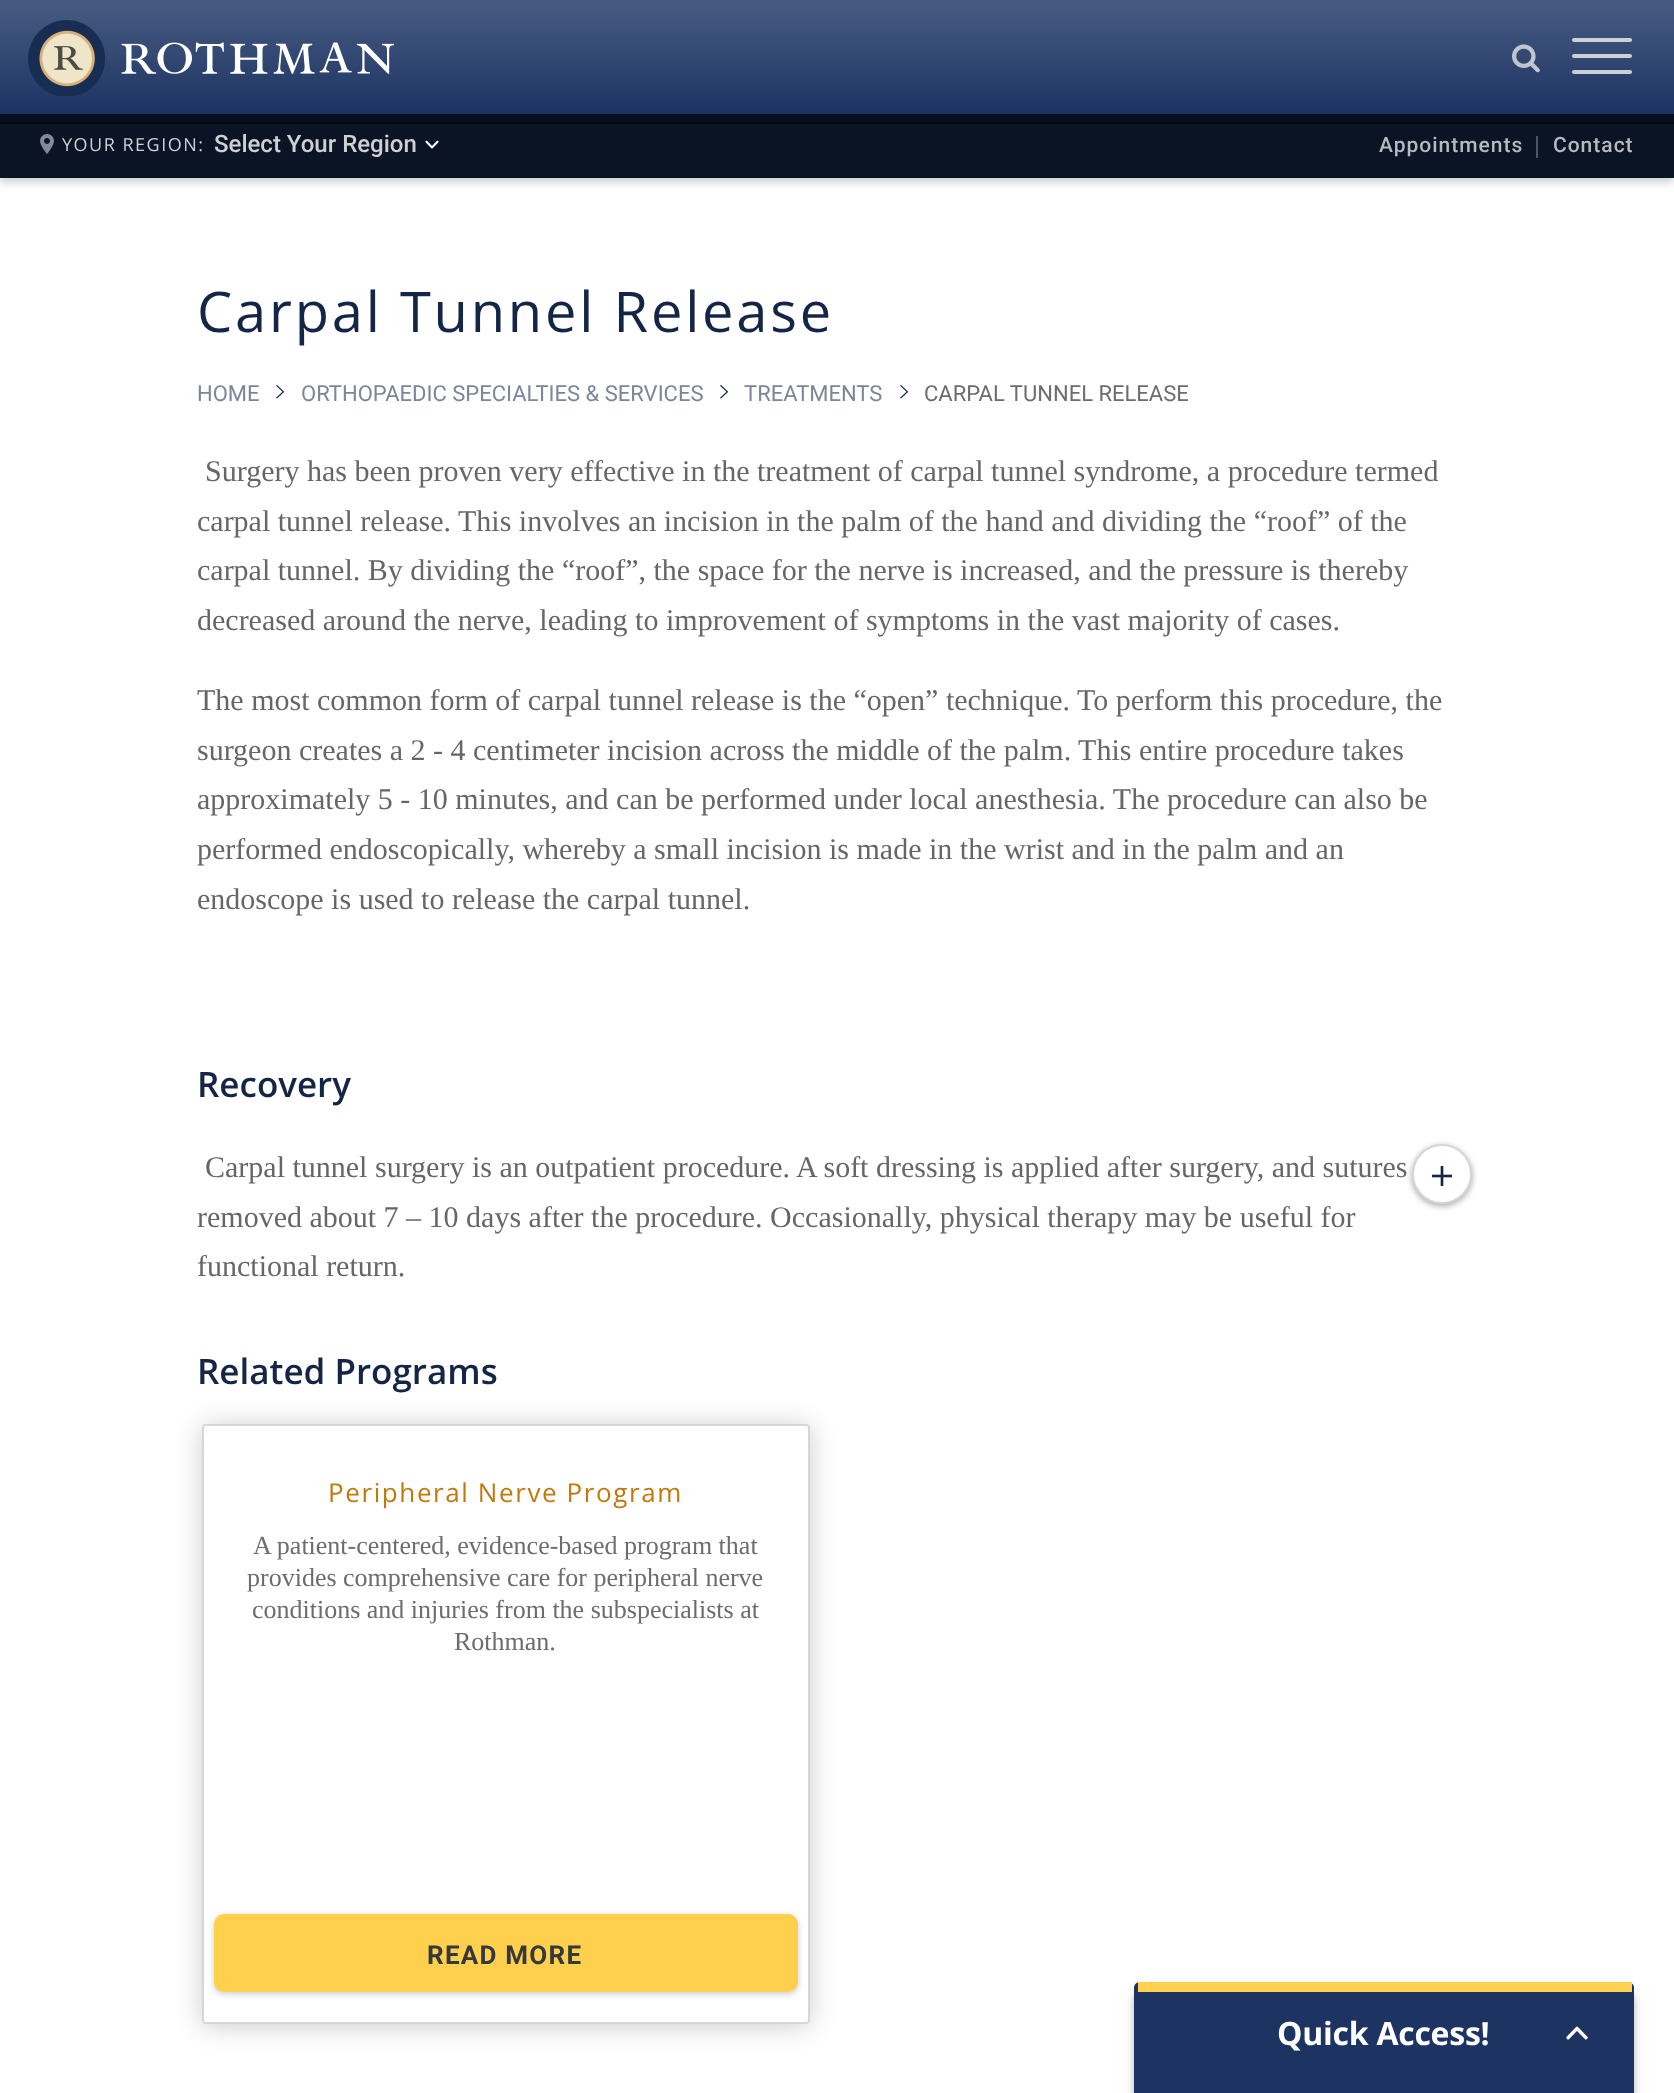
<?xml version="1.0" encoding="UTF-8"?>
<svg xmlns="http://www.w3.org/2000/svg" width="1674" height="2093">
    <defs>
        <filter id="blur1" x="-50%" y="-200%" width="200%" height="500%"><feGaussianBlur stdDeviation="4"/></filter>
        <linearGradient id="g1" gradientUnits="userSpaceOnUse" x1="837" y1="0" x2="837" y2="114"><stop offset="0.05" stop-color="#465A80"/><stop offset="0.98" stop-color="#1D3463"/></linearGradient>
        <filter id="blur2" x="-50%" y="-200%" width="200%" height="500%"><feGaussianBlur stdDeviation="3"/></filter>
        <clipPath id="clip1"><path d="M 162 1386 H 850 V 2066 H 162 Z M 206 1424 H 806 C 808 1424 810 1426 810 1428 V 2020 C 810 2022 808 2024 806 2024 H 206 C 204 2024 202 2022 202 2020 V 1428 C 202 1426 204 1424 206 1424 Z" clip-rule="evenodd"/></clipPath>
        <filter id="blur3" x="-50%" y="-200%" width="200%" height="500%"><feGaussianBlur stdDeviation="13"/></filter>
    </defs>
    <rect width="100%" height="100%" fill="#FFFFFF"/>
    <rect x="0" y="118" width="1674" height="64" fill="#000000" fill-opacity="0.2" filter="url(#blur1)"/>
    <rect x="0" y="0" width="1674" height="114" fill="url(#g1)"/>
    <image x="28" y="20" width="366" height="76" href="img_01.png"/>
    <image x="1512" y="44" width="28" height="29" href="img_02.png"/>
    <rect x="1572" y="38" width="60" height="4" rx="2" fill="#CDD0D7"/>
    <rect x="1572" y="54" width="60" height="4" rx="2" fill="#CCCFD6"/>
    <rect x="1572" y="70" width="60" height="4" rx="2" fill="#CBCED6"/>
    <rect x="0" y="124" width="1674" height="54" fill="#0B1425"/>
    <rect x="0" y="122" width="1674" height="2" fill="#060A13"/>
    <rect x="0" y="114" width="1674" height="8" fill="#080F1C"/>
    <image x="40" y="134" width="14" height="20" href="img_03.png"/>
    <text x="62" y="151" font-family="Open Sans" font-size="18" letter-spacing="1.5" fill="#CED0D3">YOUR REGION:</text>
    <image x="425" y="140" width="14" height="9" href="img_04.png"/>
    <text x="214" y="152" font-family="Roboto" font-size="24" font-weight="500" fill="#CED0D3">Select Your Region</text>
    <text x="1379" y="152" font-family="Roboto" font-size="21" font-weight="500" letter-spacing="1" fill="#B6B9BE">Appointments</text>
    <rect x="1536" y="136" width="2" height="22" fill="#4F5662"/>
    <text x="1553" y="152" font-family="Roboto" font-size="21" font-weight="500" letter-spacing="1" fill="#B6B9BE">Contact</text>
    <text x="197" y="332" font-family="Open Sans" font-size="56" letter-spacing="2.8" fill="#142546">Carpal Tunnel Release</text>
    <text x="197" y="401" font-family="Roboto" font-size="22" fill="#7C8699">HOME</text>
    <image x="276" y="385" width="9" height="14" href="img_05.png"/>
    <text x="301" y="401" font-family="Roboto" font-size="22" fill="#7C8699">ORTHOPAEDIC SPECIALTIES &amp; SERVICES</text>
    <image x="720" y="385" width="9" height="14" href="img_05.png"/>
    <text x="744" y="401" font-family="Roboto" font-size="22" fill="#7C8699">TREATMENTS</text>
    <image x="900" y="385" width="9" height="14" href="img_05.png"/>
    <text x="924" y="401" font-family="Roboto" font-size="22" fill="#6D6D6D">CARPAL TUNNEL RELEASE</text>
    <text x="205" y="481" font-family="Liberation Serif" font-size="30" fill="#666666">Surgery has been proven very effective in the treatment of carpal tunnel syndrome, a procedure termed</text>
    <text font-family="Liberation Serif" font-size="30" fill="#666666">
        <tspan x="197" y="531">carpal tunnel release. This involves an incision in the palm of the hand and dividing the “roof” of the</tspan>
        <tspan x="197" y="580">carpal tunnel. By dividing the “roof”, the space for the nerve is increased, and the pressure is thereby</tspan>
        <tspan x="197" y="630">decreased around the nerve, leading to improvement of symptoms in the vast majority of cases.</tspan>
    </text>
    <text font-family="Liberation Serif" font-size="30" fill="#666666">
        <tspan x="197" y="710">The most common form of carpal tunnel release is the “open” technique. To perform this procedure, the</tspan>
        <tspan x="197" y="760">surgeon creates a 2 - 4 centimeter incision across the middle of the palm. This entire procedure takes</tspan>
        <tspan x="197" y="809">approximately 5 - 10 minutes, and can be performed under local anesthesia. The procedure can also be</tspan>
        <tspan x="197" y="859">performed endoscopically, whereby a small incision is made in the wrist and in the palm and an</tspan>
        <tspan x="197" y="909">endoscope is used to release the carpal tunnel.</tspan>
    </text>
    <text x="197" y="1097" font-family="Open Sans" font-size="35" font-weight="600" fill="#142546">Recovery</text>
    <rect x="1412" y="1146" width="60" height="60" rx="30" fill="#000000" fill-opacity="0.35" filter="url(#blur2)"/>
    <circle cx="1442" cy="1174" r="29" fill="#FFFFFF" stroke="#D6D6D6" stroke-width="2"/>
    <image x="1432" y="1166" width="20" height="20" href="img_06.png"/>
    <text x="205" y="1177" font-family="Liberation Serif" font-size="30" fill="#666666">Carpal tunnel surgery is an outpatient procedure. A soft dressing is applied after surgery, and sutures</text>
    <text font-family="Liberation Serif" font-size="30" fill="#666666">
        <tspan x="197" y="1227">removed about 7 – 10 days after the procedure. Occasionally, physical therapy may be useful for</tspan>
        <tspan x="197" y="1276">functional return.</tspan>
    </text>
    <text x="197" y="1384" font-family="Open Sans" font-size="35" font-weight="600" fill="#142546">Related Programs</text>
    <g clip-path="url(#clip1)">
        <rect x="202" y="1426" width="608" height="600" rx="4" fill="#000000" fill-opacity="0.2" filter="url(#blur3)"/>
    </g>
    <rect x="203" y="1425" width="606" height="598" rx="3" fill="none" stroke="#D6D6D6" stroke-width="2"/>
    <text x="328" y="1502" font-family="Open Sans" font-size="26" letter-spacing="1.6" fill="#C1790B">Peripheral Nerve Program</text>
    <text x="253" y="1554" font-family="Liberation Serif" font-size="26" fill="#6D6D6D">A patient-centered, evidence-based program that</text>
    <text x="247" y="1586" font-family="Liberation Serif" font-size="26" fill="#6D6D6D">provides comprehensive care for peripheral nerve</text>
    <text x="252" y="1618" font-family="Liberation Serif" font-size="26" fill="#6D6D6D">conditions and injuries from the subspecialists at</text>
    <text x="454" y="1650" font-family="Liberation Serif" font-size="26" fill="#6D6D6D">Rothman.</text>
    <rect x="214" y="1916" width="584" height="78" rx="10" fill="#000000" fill-opacity="0.2" filter="url(#blur2)"/>
    <rect x="214" y="1914" width="584" height="78" rx="10" fill="#FFD04E"/>
    <text x="427" y="1964" font-family="Roboto" font-size="26" font-weight="700" letter-spacing="1.25" fill="#36393B">READ MORE</text>
    <rect x="1134" y="1994" width="500" height="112" rx="6" fill="#000000" fill-opacity="0.3" filter="url(#blur1)"/>
    <path d="M 1140 1982 H 1628 C 1631.5 1982 1634 1984.5 1634 1988 V 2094 H 1134 V 1988 C 1134 1984.5 1136.5 1982 1140 1982 Z" fill="#1D3463"/>
    <rect x="1138" y="1982" width="494" height="10" fill="#FFD151"/>
    <text x="1277" y="2045" font-family="Open Sans" font-size="32" font-weight="700" letter-spacing="-0.25" fill="#FFFFFF">Quick Access!</text>
    <image x="1566" y="2026" width="22" height="14" href="img_07.png"/>
</svg>
